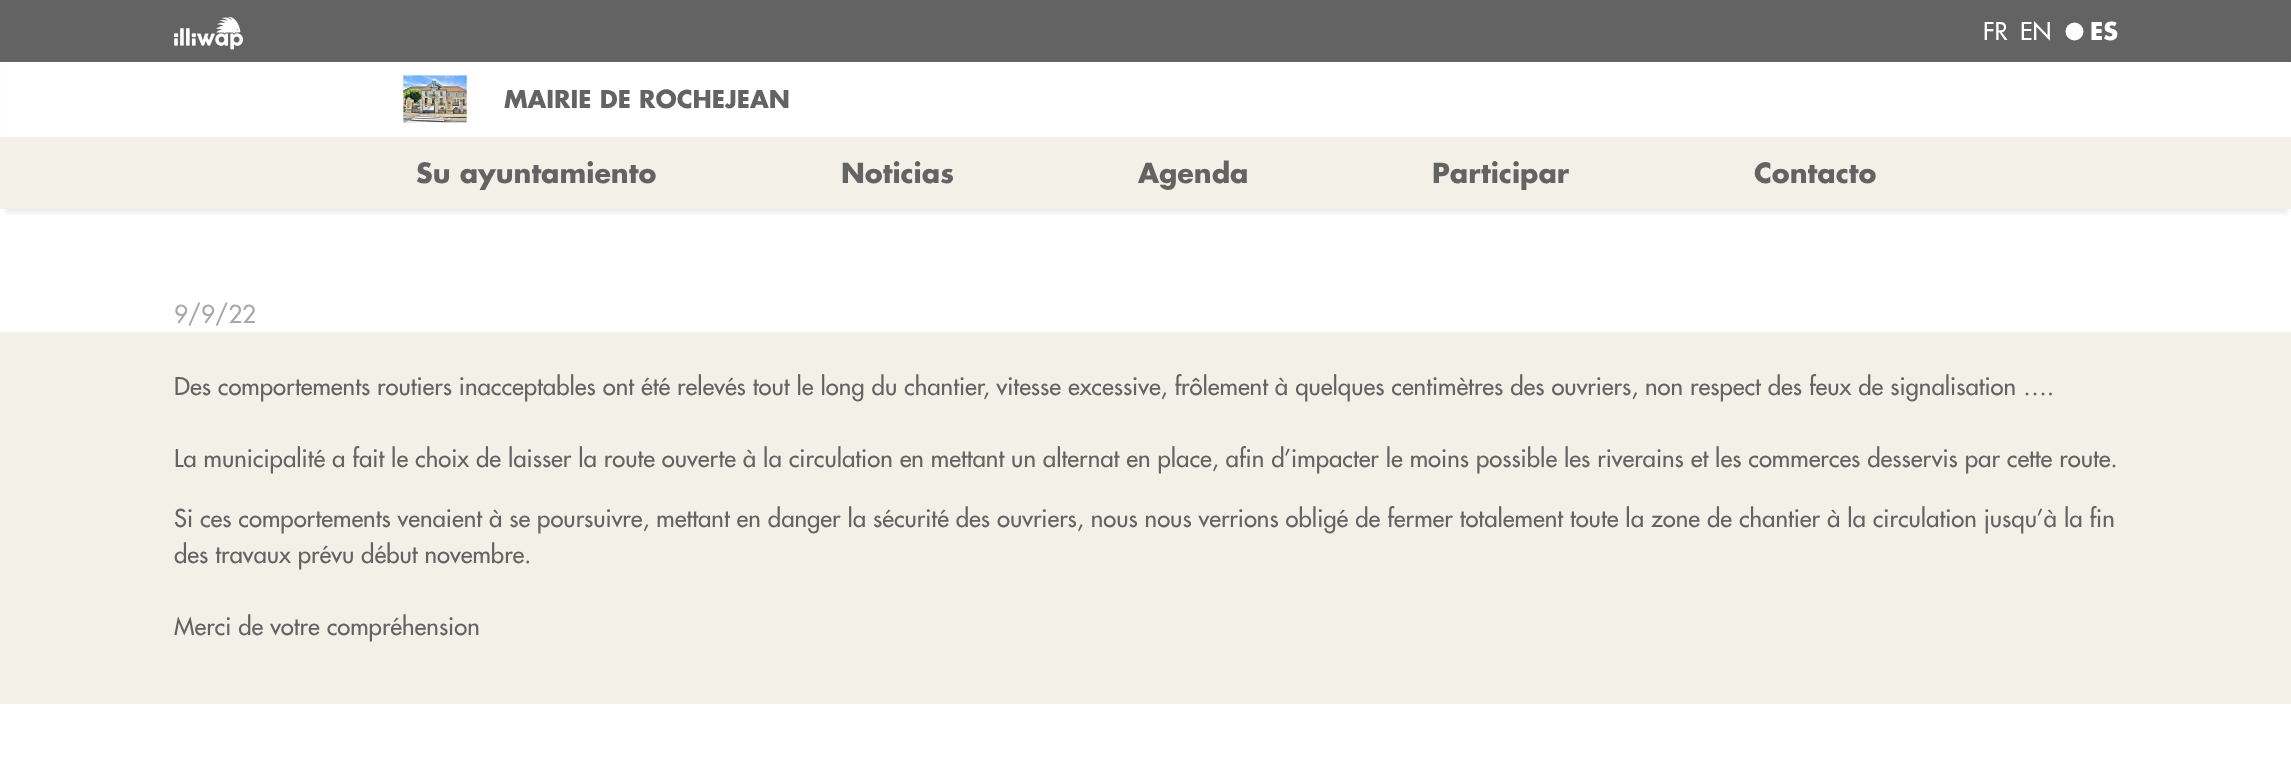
<?xml version="1.0" encoding="UTF-8"?>
<svg xmlns="http://www.w3.org/2000/svg" width="2291" height="783">
    <defs>
        <filter id="blur1" x="-50%" y="-200%" width="200%" height="500%"><feGaussianBlur stdDeviation="2"/></filter>
    </defs>
    <rect width="100%" height="100%" fill="#FFFFFF"/>
    <rect x="5" y="14" width="2283" height="199" fill="#000000" fill-opacity="0.08" filter="url(#blur1)"/>
    <rect x="3" y="62" width="2287" height="75" fill="#FFFFFF"/>
    <rect x="0" y="0" width="2291" height="62" fill="#646363"/>
    <image x="174" y="17" width="69" height="33" href="img_01.png"/>
    <text x="1983" y="40" font-family="Futura" font-size="24" fill="#FFFFFF">FR</text>
    <text x="2020" y="40" font-family="Futura" font-size="24" fill="#FFFFFF">EN</text>
    <circle cx="2074.5" cy="31.5" r="9" fill="#FFFFFF"/>
    <text x="2090" y="40" font-family="Futura" font-size="24" font-weight="700" fill="#FFFFFF">ES</text>
    <image x="403" y="75" width="64" height="48" href="img_02.png"/>
    <text x="504" y="108" font-family="Futura" font-size="24" font-weight="700" fill="#646363">MAIRIE DE ROCHEJEAN</text>
    <rect x="0" y="137" width="2291" height="72" fill="#F3F0E8"/>
    <text x="416" y="183" font-family="Futura" font-size="27" font-weight="700" fill="#646363">Su ayuntamiento</text>
    <text x="841" y="183" font-family="Futura" font-size="27" font-weight="700" fill="#646363">Noticias</text>
    <text x="1138" y="183" font-family="Futura" font-size="27" font-weight="700" fill="#646363">Agenda</text>
    <text x="1432" y="183" font-family="Futura" font-size="27" font-weight="700" fill="#646363">Participar</text>
    <text x="1754" y="183" font-family="Futura" font-size="27" font-weight="700" fill="#646363">Contacto</text>
    <text x="174" y="323" font-family="Futura" font-size="24" fill="#A8A8A8">9/9/22</text>
    <rect x="0" y="332" width="2291" height="372" fill="#F3F0E8"/>
    <text x="174" y="395" font-family="Futura" font-size="24" fill="#646363">Des comportements routiers inacceptables ont été relevés tout le long du chantier, vitesse excessive, frôlement à quelques centimètres des ouvriers, non respect des feux de signalisation ….</text>
    <text x="174" y="467" font-family="Futura" font-size="24" fill="#646363">La municipalité a fait le choix de laisser la route ouverte à la circulation en mettant un alternat en place, afin d’impacter le moins possible les riverains et les commerces desservis par cette route.</text>
    <text font-family="Futura" font-size="24" fill="#646363">
        <tspan x="174" y="527">Si ces comportements venaient à se poursuivre, mettant en danger la sécurité des ouvriers, nous nous verrions obligé de fermer totalement toute la zone de chantier à la circulation jusqu’à la fin</tspan>
        <tspan x="174" y="563">des travaux prévu début novembre.</tspan>
    </text>
    <text x="174" y="635" font-family="Futura" font-size="24" fill="#646363">Merci de votre compréhension</text>
</svg>
